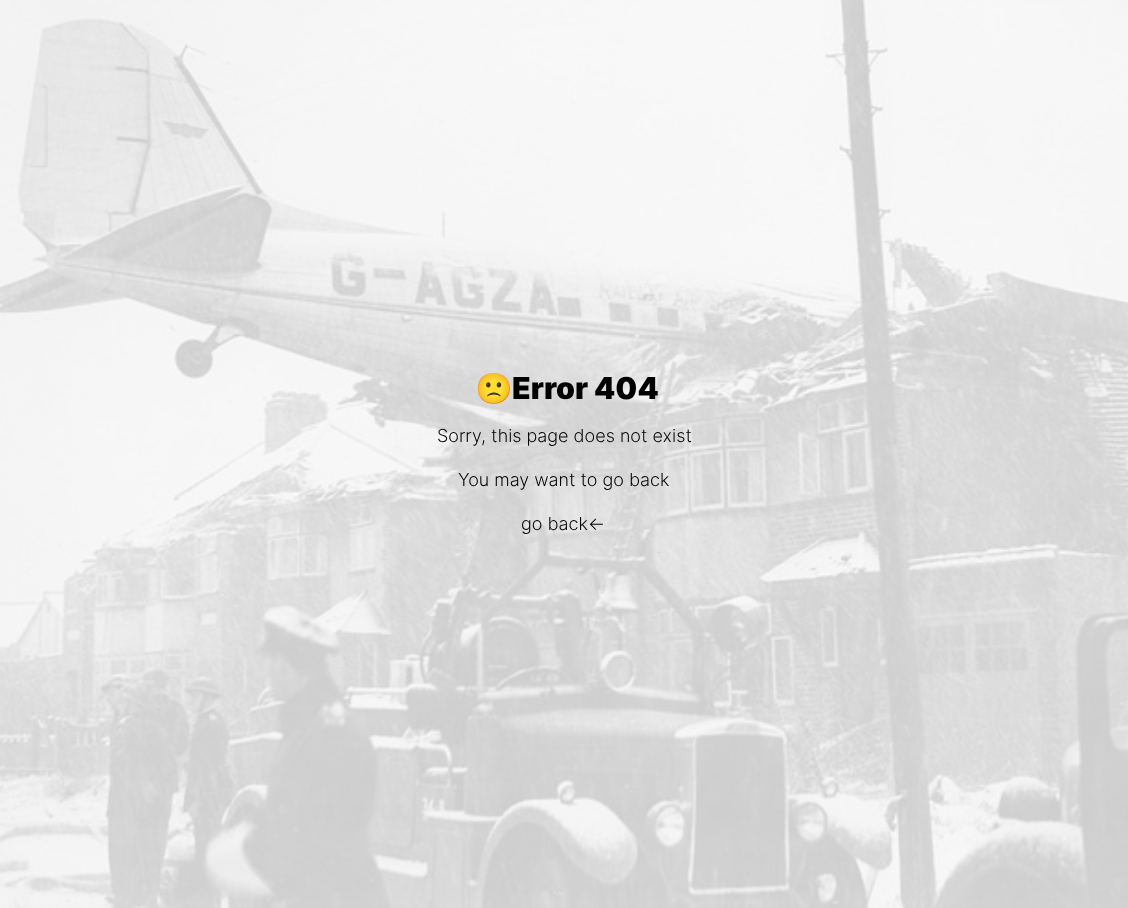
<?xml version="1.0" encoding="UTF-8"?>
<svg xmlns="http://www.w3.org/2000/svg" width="1128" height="908">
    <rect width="100%" height="100%" fill="#FFFFFF"/>
    <image x="0" y="0" width="1128" height="908" href="img_01.png"/>
    <text x="475" y="399" font-family="Noto Color Emoji" font-size="30.25" font-weight="700" fill="#000000">🙁</text>
    <text x="512" y="399" font-family="Inter" font-size="30.25" font-weight="900" fill="#000000">Error 404</text>
    <text x="437" y="442" font-family="Inter" font-size="18" font-weight="300" fill="#000000">Sorry, this page does not exist</text>
    <text x="458" y="486" font-family="Inter" font-size="18" font-weight="300" fill="#000000">You may want to go back</text>
    <text x="521" y="530" font-family="Inter" font-size="18" font-weight="300" fill="#000000">go back</text>
    <text x="588" y="530" font-family="Inter" font-size="18" font-weight="300" fill="#000000">←</text>
</svg>
